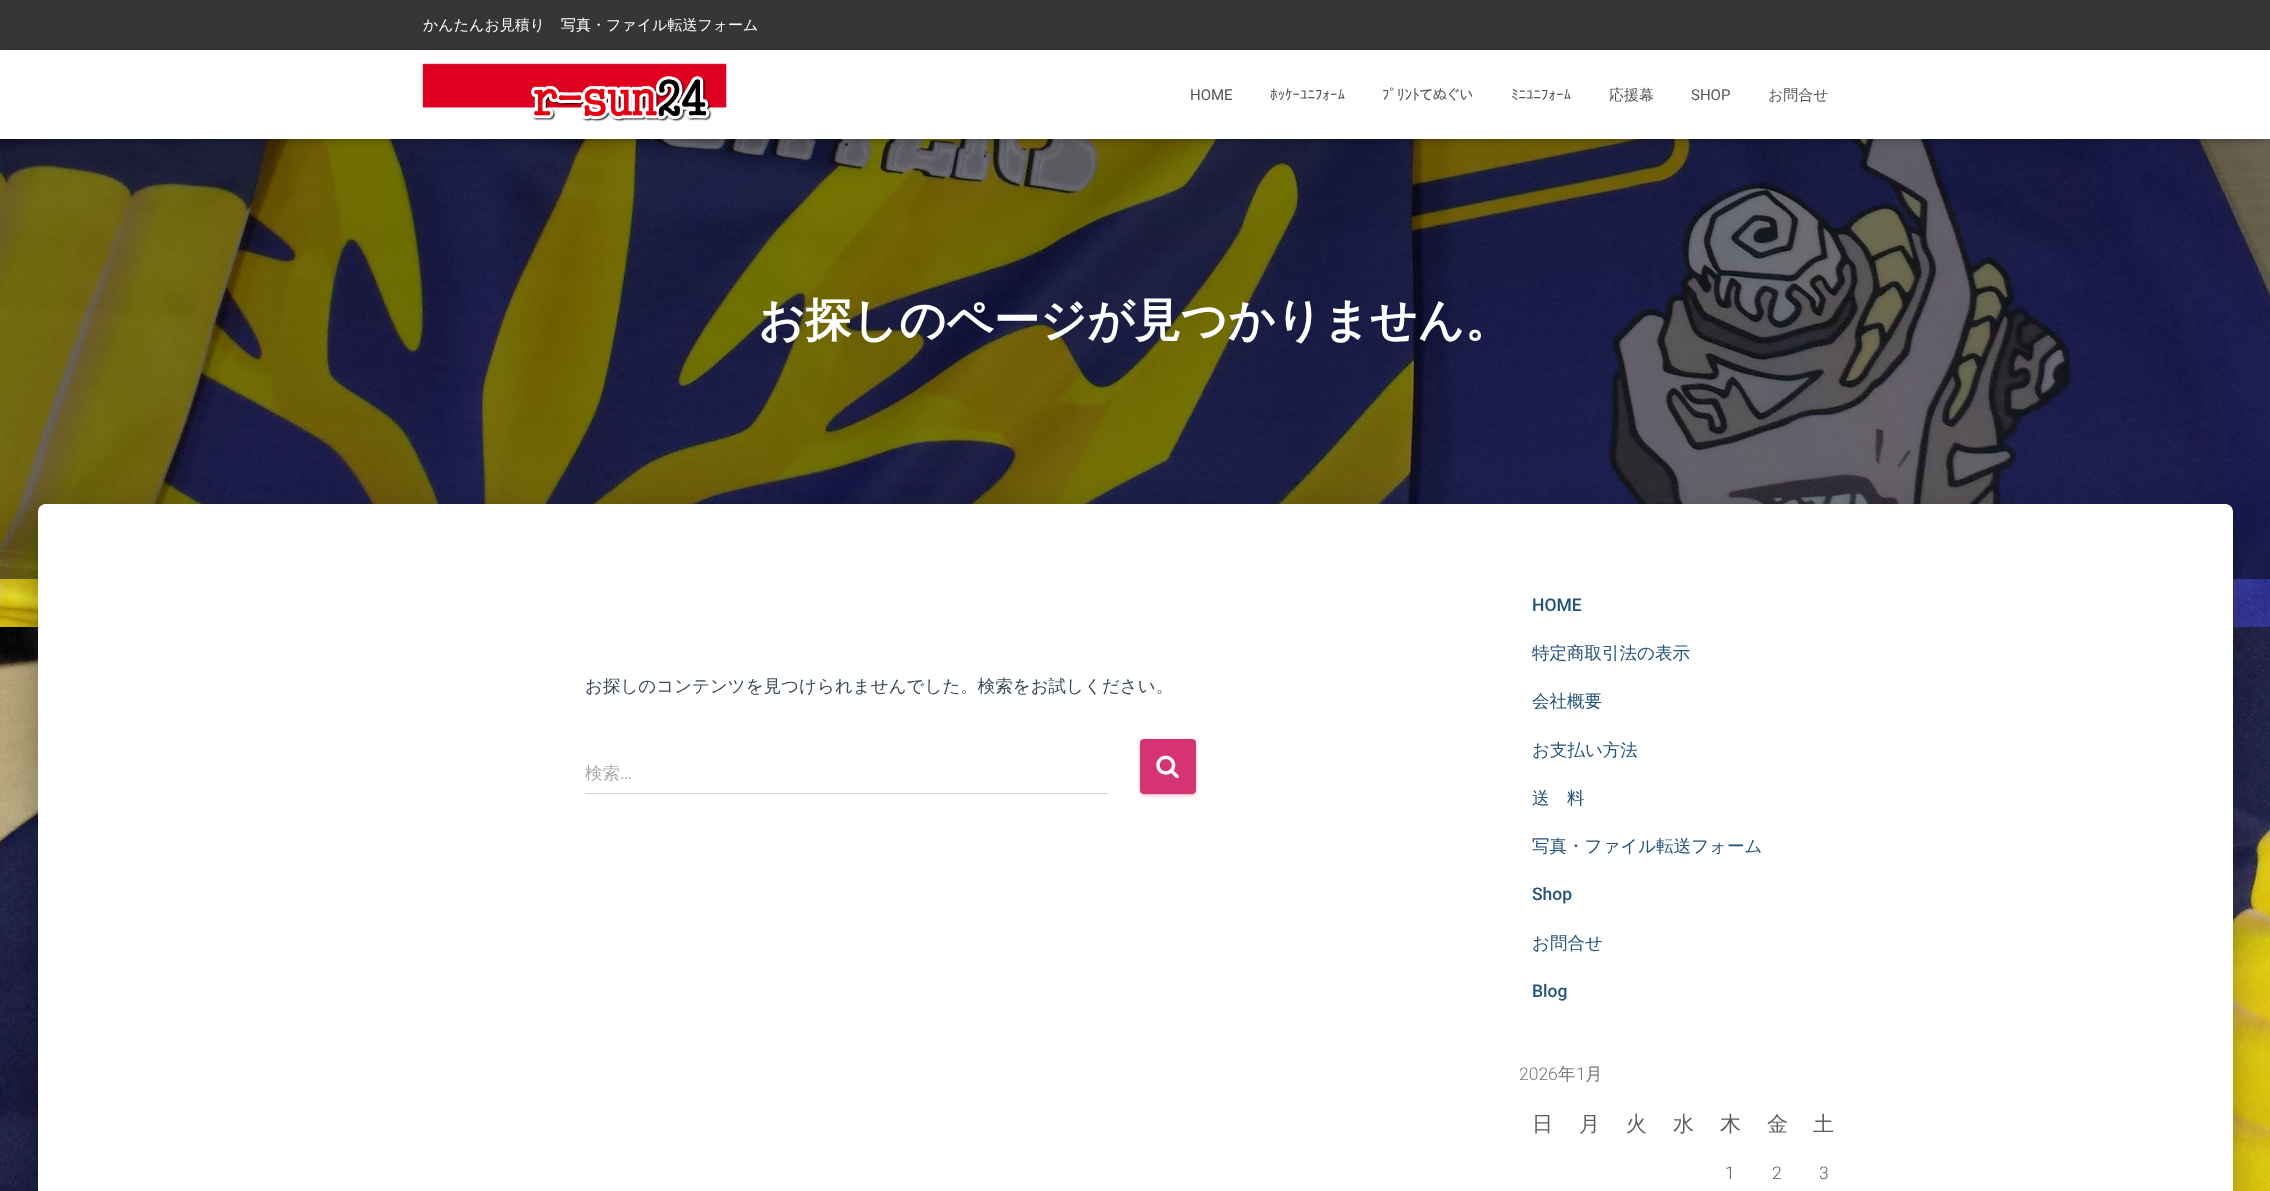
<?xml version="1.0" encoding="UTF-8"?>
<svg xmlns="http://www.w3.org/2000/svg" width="2270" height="1191">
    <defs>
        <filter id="blur1" x="-50%" y="-200%" width="200%" height="500%"><feGaussianBlur stdDeviation="3"/></filter>
        <filter id="blur2" x="-50%" y="-200%" width="200%" height="500%"><feGaussianBlur stdDeviation="6"/></filter>
        <filter id="blur3" x="-50%" y="-200%" width="200%" height="500%"><feGaussianBlur stdDeviation="19"/></filter>
        <filter id="blur4" x="-50%" y="-200%" width="200%" height="500%"><feGaussianBlur stdDeviation="15"/></filter>
        <filter id="blur5" x="-50%" y="-200%" width="200%" height="500%"><feGaussianBlur stdDeviation="0.5"/></filter>
        <filter id="blur6" x="-50%" y="-200%" width="200%" height="500%"><feGaussianBlur stdDeviation="1"/></filter>
    </defs>
    <rect width="100%" height="100%" fill="#FFFFFF"/>
    <image x="0" y="139" width="2270" height="1052" href="img_01.png"/>
    <rect x="0" y="0" width="2270" height="50" fill="#363537"/>
    <text x="423" y="30" font-family="WenQuanYi Zen Hei" font-size="15" font-weight="500" fill="#FFFFFF">かんたんお見積り</text>
    <text x="561" y="30" font-family="WenQuanYi Zen Hei" font-size="15" font-weight="500" fill="#FFFFFF">写真・ファイル転送フォーム</text>
    <rect x="0" y="139" width="2270" height="440" fill="#000000" fill-opacity="0.5"/>
    <rect x="3" y="58" width="2265" height="83" fill="#000000" fill-opacity="0.1" filter="url(#blur1)"/>
    <rect x="0" y="51" width="2270" height="89" fill="#000000" fill-opacity="0.12" filter="url(#blur2)"/>
    <rect x="8" y="59" width="2255" height="74" fill="#000000" fill-opacity="0.42" filter="url(#blur2)"/>
    <rect x="0" y="50" width="2270" height="89" fill="#FFFFFF"/>
    <image x="422" y="63" width="305" height="59" href="img_02.png"/>
    <text x="1190" y="100" font-family="Roboto" font-size="15" fill="#555555">HOME</text>
    <text x="1270" y="100" font-family="IPAPGothic" font-size="15" fill="#555555">ﾎｯｹｰﾕﾆﾌｫｰﾑ</text>
    <text x="1382" y="100" font-family="IPAPGothic" font-size="15" fill="#555555">ﾌﾟﾘﾝﾄてぬぐい</text>
    <text x="1511" y="100" font-family="IPAPGothic" font-size="15" fill="#555555">ﾐﾆﾕﾆﾌｫｰﾑ</text>
    <text x="1609" y="100" font-family="WenQuanYi Zen Hei" font-size="15" font-weight="500" fill="#555555">応援幕</text>
    <text x="1691" y="100" font-family="Roboto" font-size="15" fill="#555555">SHOP</text>
    <text x="1768" y="100" font-family="WenQuanYi Zen Hei" font-size="15" font-weight="500" fill="#555555">お問合せ</text>
    <text x="758" y="336" font-family="WenQuanYi Zen Hei" font-size="46.25" font-weight="700" fill="#FFFFFF">お探しのページが見つかりません。</text>
    <rect x="44" y="520" width="2182" height="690" rx="1" fill="#000000" fill-opacity="0.2" filter="url(#blur2)"/>
    <rect x="31" y="505" width="2208" height="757" rx="14" fill="#000000" fill-opacity="0.12" filter="url(#blur3)"/>
    <rect x="35" y="521" width="2200" height="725" rx="10" fill="#000000" fill-opacity="0.14" filter="url(#blur4)"/>
    <path d="M 46 504 H 2225 C 2229.5 504 2233 507.5 2233 512 V 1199 H 38 V 512 C 38 507.5 41.5 504 46 504 Z" fill="#FFFFFF"/>
    <text x="585" y="692" font-family="WenQuanYi Zen Hei" font-size="17.5" font-weight="500" fill="#3C4858">お探しのコンテンツを見つけられませんでした。検索をお試しください。</text>
    <text x="585" y="779" font-family="WenQuanYi Zen Hei" font-size="17.5" font-weight="500" fill="#AAAAAA">検索</text>
    <text x="620" y="779" font-family="Roboto" font-size="17.5" fill="#AAAAAA">…</text>
    <rect x="585" y="793" width="523" height="1" fill="#D2D2D2"/>
    <rect x="1140" y="740" width="56" height="55" rx="4" fill="#D63374" fill-opacity="0.12" filter="url(#blur1)"/>
    <rect x="1143" y="745" width="51" height="50" rx="1" fill="#D63374" fill-opacity="0.2" filter="url(#blur5)"/>
    <rect x="1140" y="741" width="56" height="55" rx="4" fill="#D63374" fill-opacity="0.14" filter="url(#blur6)"/>
    <rect x="1140" y="739" width="56" height="55" rx="4" fill="#D63374"/>
    <image x="1156" y="755" width="23" height="24" href="img_03.png"/>
    <text x="1532" y="611" font-family="Roboto" font-size="17.5" font-weight="500" fill="#23527C">HOME</text>
    <text x="1532" y="659" font-family="WenQuanYi Zen Hei" font-size="17.5" font-weight="500" fill="#23527C">特定商取引法の表示</text>
    <text x="1532" y="707" font-family="WenQuanYi Zen Hei" font-size="17.5" font-weight="500" fill="#23527C">会社概要</text>
    <text x="1532" y="756" font-family="WenQuanYi Zen Hei" font-size="17.5" font-weight="500" fill="#23527C">お支払い方法</text>
    <text x="1532" y="804" font-family="WenQuanYi Zen Hei" font-size="17.5" font-weight="500" fill="#23527C">送　料</text>
    <text x="1532" y="852" font-family="WenQuanYi Zen Hei" font-size="17.5" font-weight="500" fill="#23527C">写真・ファイル転送フォーム</text>
    <text x="1532" y="900" font-family="Roboto" font-size="17.5" font-weight="500" fill="#23527C">Shop</text>
    <text x="1532" y="949" font-family="WenQuanYi Zen Hei" font-size="17.5" font-weight="500" fill="#23527C">お問合せ</text>
    <text x="1532" y="997" font-family="Roboto" font-size="17.5" font-weight="500" fill="#23527C">Blog</text>
    <text x="1519" y="1080" font-family="Roboto" font-size="17.5" font-weight="300" fill="#777777">2026</text>
    <text x="1558" y="1080" font-family="WenQuanYi Zen Hei" font-size="17.5" font-weight="500" fill="#777777">年</text>
    <text x="1576" y="1080" font-family="Roboto" font-size="17.5" font-weight="300" fill="#777777">1</text>
    <text x="1585" y="1080" font-family="WenQuanYi Zen Hei" font-size="17.5" font-weight="500" fill="#777777">月</text>
    <text x="1532" y="1131" font-family="WenQuanYi Zen Hei" font-size="21" font-weight="500" fill="#5E5E5E">日</text>
    <text x="1579" y="1131" font-family="WenQuanYi Zen Hei" font-size="21" font-weight="500" fill="#5E5E5E">月</text>
    <text x="1626" y="1131" font-family="WenQuanYi Zen Hei" font-size="21" font-weight="500" fill="#5E5E5E">火</text>
    <text x="1673" y="1131" font-family="WenQuanYi Zen Hei" font-size="21" font-weight="500" fill="#5E5E5E">水</text>
    <text x="1720" y="1131" font-family="WenQuanYi Zen Hei" font-size="21" font-weight="500" fill="#5E5E5E">木</text>
    <text x="1767" y="1131" font-family="WenQuanYi Zen Hei" font-size="21" font-weight="500" fill="#5E5E5E">金</text>
    <text x="1813" y="1131" font-family="WenQuanYi Zen Hei" font-size="21" font-weight="500" fill="#5E5E5E">土</text>
    <text x="1725" y="1179" font-family="Roboto" font-size="17.5" font-weight="300" fill="#5E5E5E">1</text>
    <text x="1772" y="1179" font-family="Roboto" font-size="17.5" font-weight="300" fill="#5E5E5E">2</text>
    <text x="1819" y="1179" font-family="Roboto" font-size="17.5" font-weight="300" fill="#5E5E5E">3</text>
</svg>
